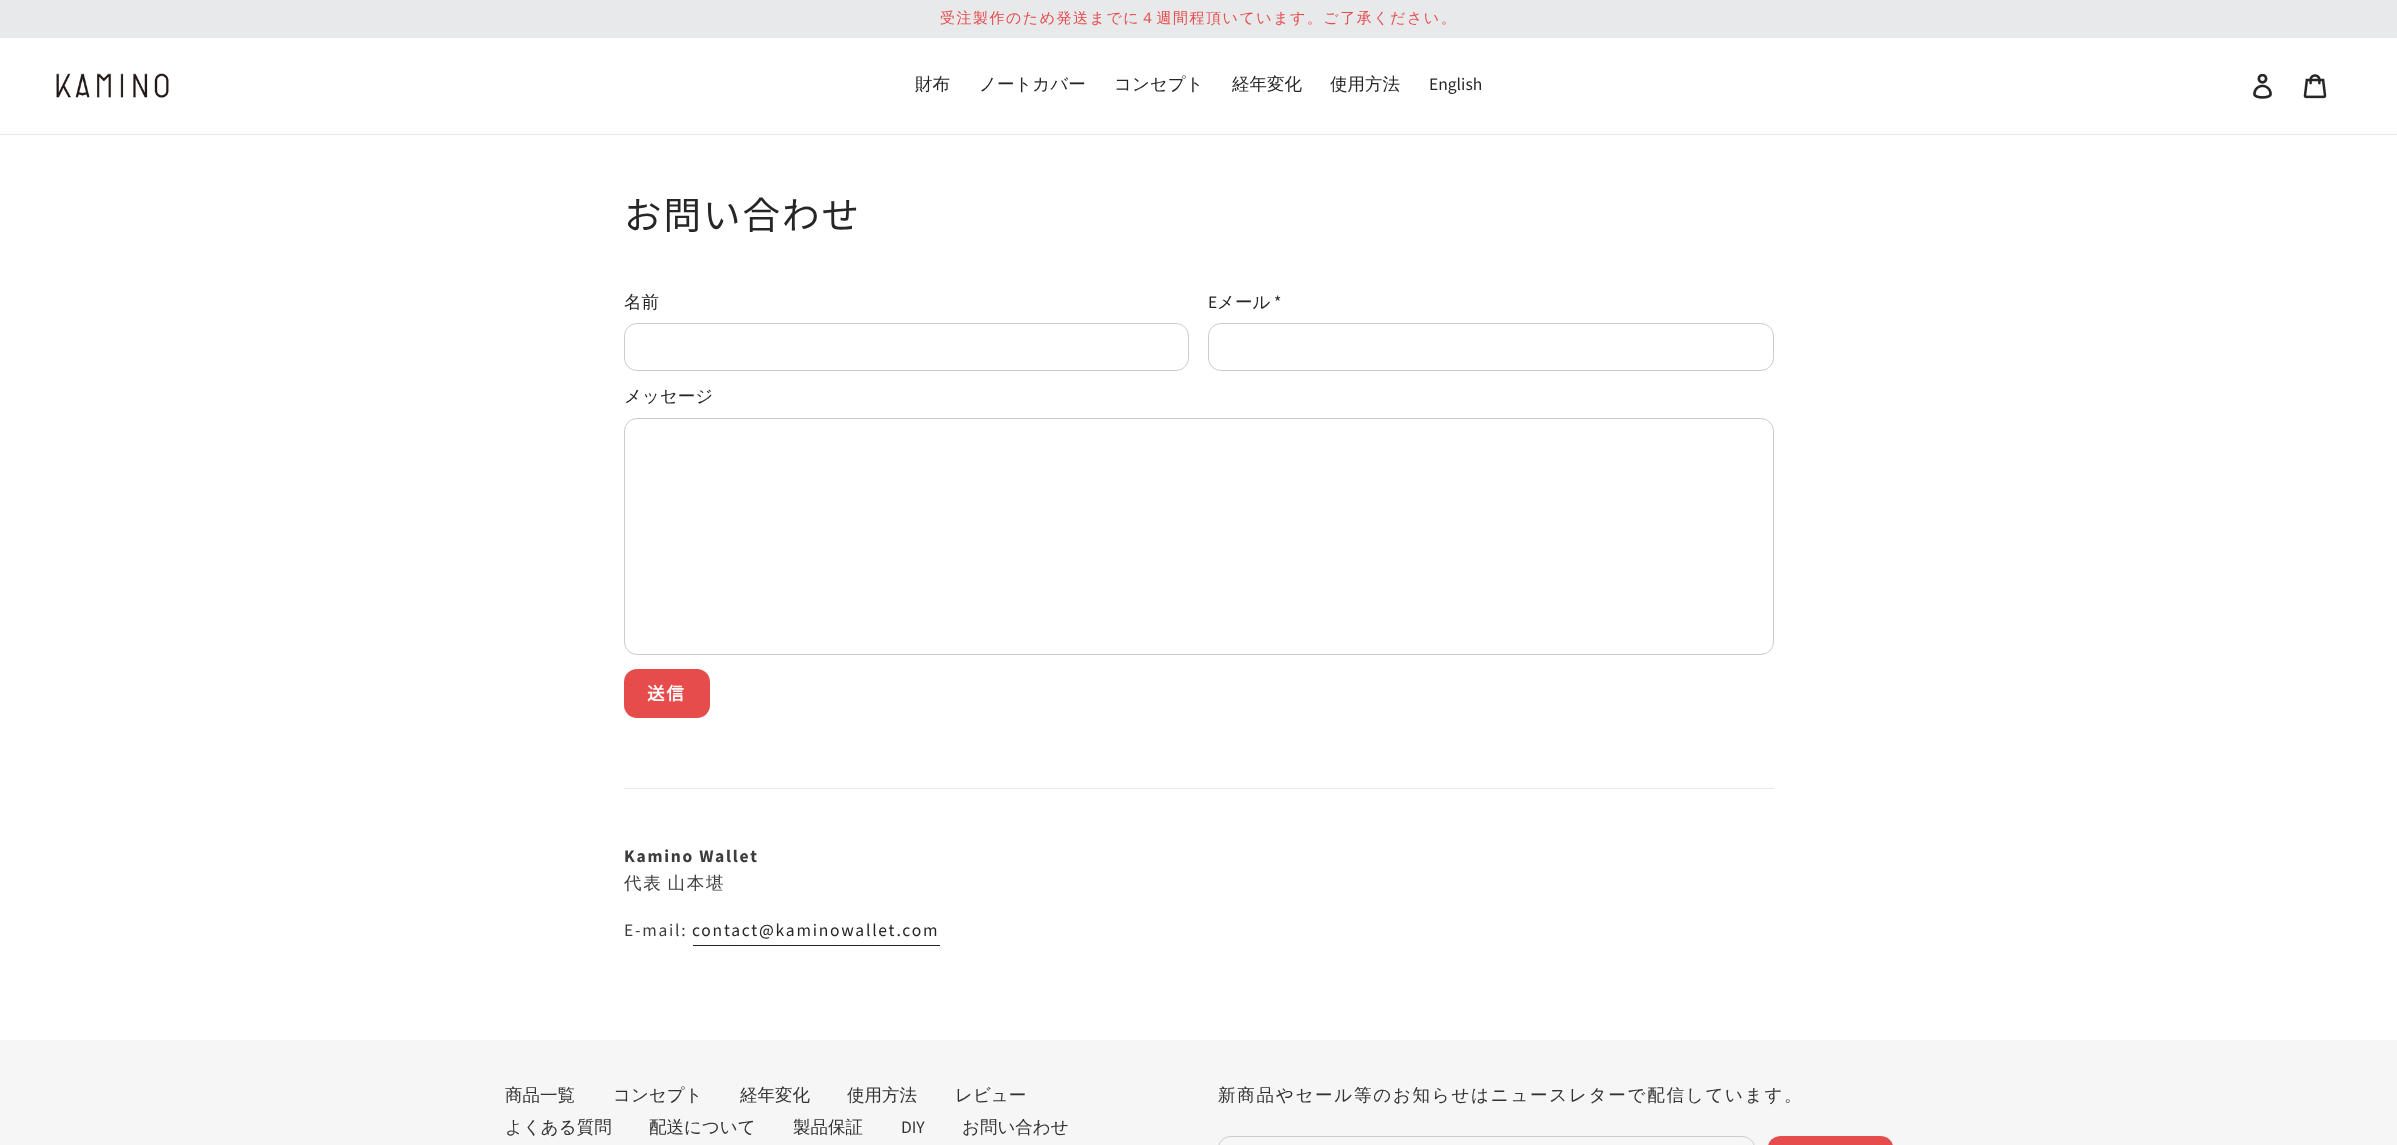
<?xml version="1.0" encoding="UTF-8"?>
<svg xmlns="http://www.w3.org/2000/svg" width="2397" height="1145">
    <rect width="100%" height="100%" fill="#FFFFFF"/>
    <rect x="0" y="0" width="2397" height="38" fill="#E8E9EB"/>
    <text x="940" y="23" font-family="WenQuanYi Zen Hei" font-size="15" font-weight="500" letter-spacing="1.5" fill="#E64C4C">受注製作のため発送までに４週間程頂いています。ご了承ください。</text>
    <rect x="0" y="134" width="2397" height="1" fill="#E8E9EB"/>
    <image x="56" y="73" width="113" height="25" href="img_01.png"/>
    <text x="915" y="90" font-family="WenQuanYi Zen Hei" font-size="17.5" font-weight="500" fill="#262626">財布</text>
    <text x="979" y="90" font-family="WenQuanYi Zen Hei" font-size="17.5" font-weight="500" fill="#262626">ノートカバー</text>
    <text x="1114" y="90" font-family="WenQuanYi Zen Hei" font-size="17.5" font-weight="500" fill="#262626">コンセプト</text>
    <text x="1232" y="90" font-family="WenQuanYi Zen Hei" font-size="17.5" font-weight="500" fill="#262626">経年変化</text>
    <text x="1330" y="90" font-family="WenQuanYi Zen Hei" font-size="17.5" font-weight="500" fill="#262626">使用方法</text>
    <text x="1429" y="90" font-family="Source Sans Pro" font-size="17.5" fill="#262626">English</text>
    <image x="2253" y="74" width="19" height="25" href="img_02.png"/>
    <image x="2303" y="74" width="24" height="25" href="img_03.png"/>
    <text x="624" y="229" font-family="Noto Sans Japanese" font-size="37.5" letter-spacing="2" fill="#262626">お問い合わせ</text>
    <text x="624" y="308" font-family="WenQuanYi Zen Hei" font-size="17.5" font-weight="500" fill="#262626">名前</text>
    <rect x="624.5" y="323.5" width="564" height="47" rx="12.5" fill="none" stroke="#CCCCCC"/>
    <text x="1208" y="308" font-family="Source Sans Pro" font-size="17.5" fill="#262626">E</text>
    <text x="1217" y="308" font-family="WenQuanYi Zen Hei" font-size="17.5" font-weight="500" fill="#262626">メール</text>
    <text x="1274" y="308" font-family="Source Sans Pro" font-size="17.5" fill="#262626">*</text>
    <rect x="1208.5" y="323.5" width="565" height="47" rx="12.5" fill="none" stroke="#CCCCCC"/>
    <text x="624" y="402" font-family="WenQuanYi Zen Hei" font-size="17.5" font-weight="500" fill="#262626">メッセージ</text>
    <rect x="624.5" y="418.5" width="1149" height="236" rx="12.5" fill="none" stroke="#CCCCCC"/>
    <rect x="624" y="669" width="86" height="49" rx="13" fill="#E64C4C"/>
    <text x="647" y="700" font-family="Noto Sans Japanese" font-size="17.5" font-weight="700" letter-spacing="1.75" fill="#FFFFFF">送信</text>
    <rect x="624" y="788" width="1150" height="1" fill="#E8E9EB"/>
    <text x="624" y="862" font-family="Source Sans Pro" font-size="17.5" font-weight="700" letter-spacing="1.75" fill="#3D3D3D">Kamino Wallet</text>
    <text x="624" y="889" word-spacing="-2" font-family="WenQuanYi Zen Hei" font-size="17.5" font-weight="500" letter-spacing="1.75" fill="#3D3D3D">代表 山本堪</text>
    <text x="624" y="936" font-family="Source Sans Pro" font-size="17.5" letter-spacing="1.75" fill="#3D3D3D">E-mail:</text>
    <text x="692" y="936" font-family="Source Sans Pro" font-size="17.5" letter-spacing="1.75" fill="#262626">contact@kaminowallet.com</text>
    <rect x="693" y="945" width="247" height="1" fill="#262626"/>
    <rect x="0" y="1040" width="2397" height="105" fill="#F6F6F6"/>
    <text x="505" y="1101" font-family="WenQuanYi Zen Hei" font-size="17.5" font-weight="500" fill="#333232">商品一覧</text>
    <text x="613" y="1101" font-family="WenQuanYi Zen Hei" font-size="17.5" font-weight="500" fill="#333232">コンセプト</text>
    <text x="740" y="1101" font-family="WenQuanYi Zen Hei" font-size="17.5" font-weight="500" fill="#333232">経年変化</text>
    <text x="847" y="1101" font-family="WenQuanYi Zen Hei" font-size="17.5" font-weight="500" fill="#333232">使用方法</text>
    <text x="955" y="1101" font-family="WenQuanYi Zen Hei" font-size="17.5" font-weight="500" fill="#333232">レビュー</text>
    <text x="505" y="1133" font-family="WenQuanYi Zen Hei" font-size="17.5" font-weight="500" fill="#333232">よくある質問</text>
    <text x="649" y="1133" font-family="WenQuanYi Zen Hei" font-size="17.5" font-weight="500" fill="#333232">配送について</text>
    <text x="793" y="1133" font-family="WenQuanYi Zen Hei" font-size="17.5" font-weight="500" fill="#333232">製品保証</text>
    <text x="901" y="1133" font-family="Source Sans Pro" font-size="17.5" fill="#333232">DIY</text>
    <text x="962" y="1133" font-family="WenQuanYi Zen Hei" font-size="17.5" font-weight="500" fill="#333232">お問い合わせ</text>
    <text x="1218" y="1101" font-family="WenQuanYi Zen Hei" font-size="17.5" font-weight="500" letter-spacing="1.75" fill="#333232">新商品やセール等のお知らせはニュースレターで配信しています。</text>
    <rect x="1218.5" y="1136.5" width="536" height="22" rx="12.5" fill="none" stroke="#CCCCCC"/>
    <rect x="1768" y="1136" width="125" height="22" rx="13" fill="#E64C4C"/>
</svg>
